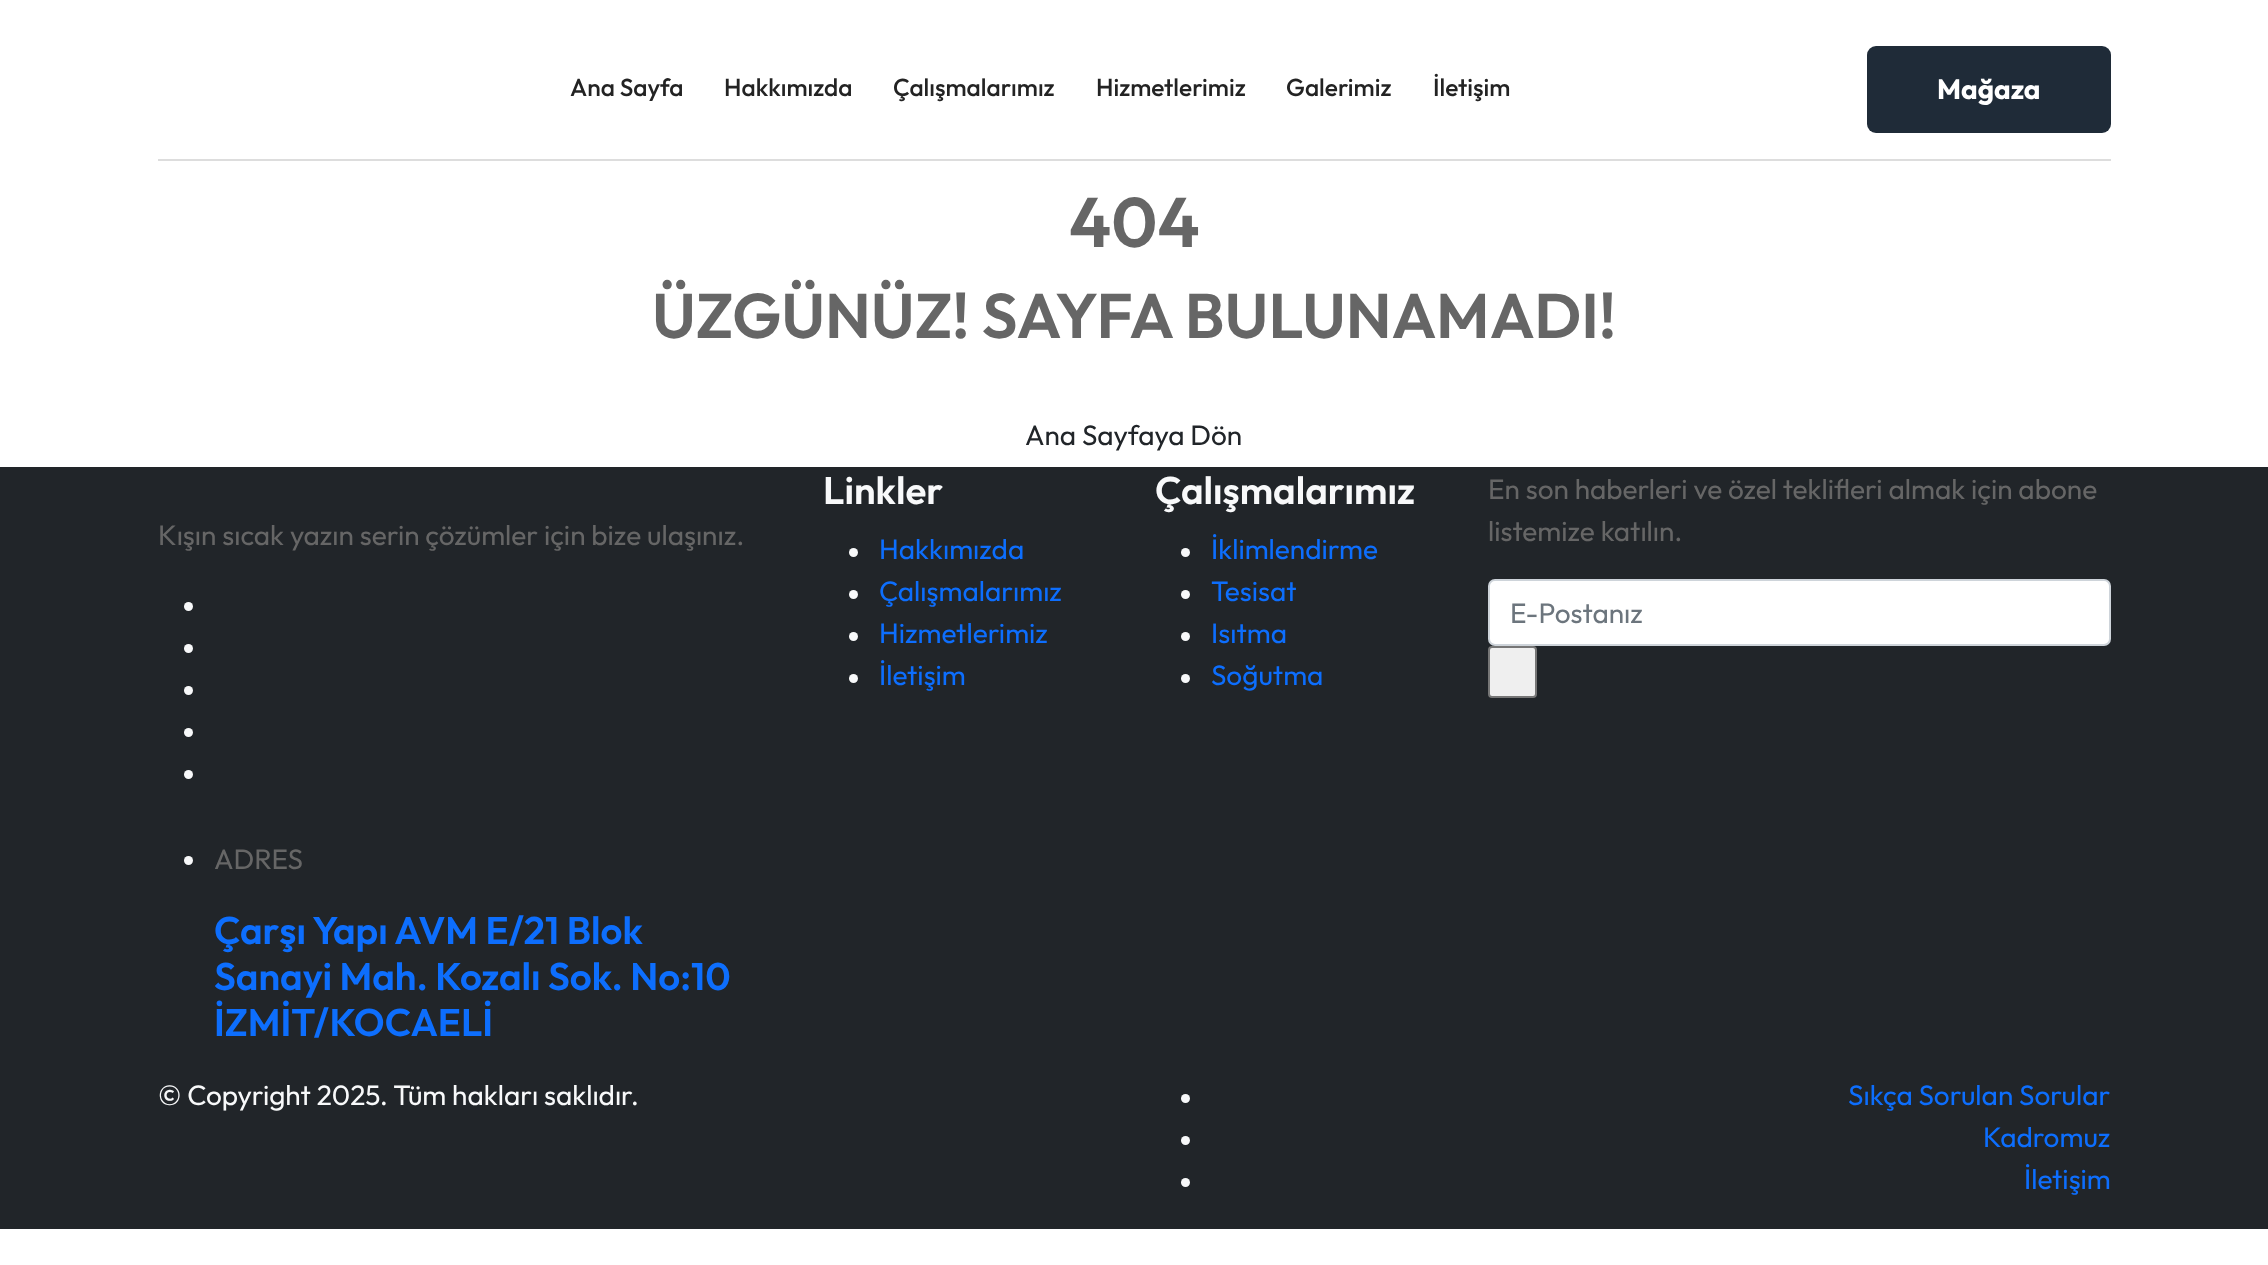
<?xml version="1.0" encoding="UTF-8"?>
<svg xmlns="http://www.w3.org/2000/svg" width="2268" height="1265">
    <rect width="100%" height="100%" fill="#FFFFFF"/>
    <rect x="158" y="159" width="1953" height="2" fill="#DDDDDD"/>
    <text x="570" y="96" font-family="Outfit" font-size="24.5" font-weight="500" fill="#232323">Ana Sayfa</text>
    <text x="724" y="96" font-family="Outfit" font-size="24.5" font-weight="500" fill="#232323">Hakkımızda</text>
    <text x="893" y="96" font-family="Outfit" font-size="24.5" font-weight="500" fill="#232323">Çalışmalarımız</text>
    <text x="1096" y="96" font-family="Outfit" font-size="24.5" font-weight="500" fill="#232323">Hizmetlerimiz</text>
    <text x="1286" y="96" font-family="Outfit" font-size="24.5" font-weight="500" fill="#232323">Galerimiz</text>
    <text x="1433" y="96" font-family="Outfit" font-size="24.5" font-weight="500" fill="#232323">İletişim</text>
    <rect x="1867" y="46" width="244" height="87" rx="9" fill="#1F2B38"/>
    <text x="1937" y="99" font-family="Outfit" font-size="28" font-weight="700" fill="#FFFFFF">Mağaza</text>
    <text x="1069" y="247" font-family="Outfit" font-size="70" font-weight="600" fill="#666666">404</text>
    <text x="652" y="338" font-family="Outfit" font-size="63" font-weight="600" fill="#666666">ÜZGÜNÜZ! SAYFA BULUNAMADI!</text>
    <text x="1025" y="445" font-family="Outfit" font-size="28" fill="#212529">Ana Sayfaya Dön</text>
    <rect x="0" y="467" width="2268" height="762" fill="#212529"/>
    <text x="158" y="545" font-family="Outfit" font-size="28" fill="#666666">Kışın sıcak yazın serin çözümler için bize ulaşınız.</text>
    <circle cx="188.5" cy="606.5" r="4.5" fill="#F8F9FA"/>
    <circle cx="188.5" cy="648.5" r="4.5" fill="#F8F9FA"/>
    <circle cx="188.5" cy="690.5" r="4.5" fill="#F8F9FA"/>
    <circle cx="188.5" cy="732.5" r="4.5" fill="#F8F9FA"/>
    <circle cx="188.5" cy="774.5" r="4.5" fill="#F8F9FA"/>
    <circle cx="188.5" cy="860.5" r="4.5" fill="#F8F9FA"/>
    <text x="214" y="869" font-family="Outfit" font-size="28" fill="#666666">ADRES</text>
    <text font-family="Outfit" font-size="38.5" font-weight="600" fill="#0D6EFD">
        <tspan x="214" y="944">Çarşı Yapı AVM E/21 Blok</tspan>
        <tspan x="214" y="990">Sanayi Mah. Kozalı Sok. No:10</tspan>
        <tspan x="214" y="1036">İZMİT/KOCAELİ</tspan>
    </text>
    <text x="823" y="504" font-family="Outfit" font-size="38.5" font-weight="600" fill="#F8F9FA">Linkler</text>
    <circle cx="853.5" cy="552.5" r="4.5" fill="#F8F9FA"/>
    <text x="879" y="559" font-family="Outfit" font-size="28" fill="#0D6EFD">Hakkımızda</text>
    <circle cx="853.5" cy="594.5" r="4.5" fill="#F8F9FA"/>
    <text x="879" y="601" font-family="Outfit" font-size="28" fill="#0D6EFD">Çalışmalarımız</text>
    <circle cx="853.5" cy="636.5" r="4.5" fill="#F8F9FA"/>
    <text x="879" y="643" font-family="Outfit" font-size="28" fill="#0D6EFD">Hizmetlerimiz</text>
    <circle cx="853.5" cy="678.5" r="4.5" fill="#F8F9FA"/>
    <text x="879" y="685" font-family="Outfit" font-size="28" fill="#0D6EFD">İletişim</text>
    <text x="1155" y="504" font-family="Outfit" font-size="38.5" font-weight="600" fill="#F8F9FA">Çalışmalarımız</text>
    <circle cx="1185.5" cy="552.5" r="4.5" fill="#F8F9FA"/>
    <text x="1211" y="559" font-family="Outfit" font-size="28" fill="#0D6EFD">İklimlendirme</text>
    <circle cx="1185.5" cy="594.5" r="4.5" fill="#F8F9FA"/>
    <text x="1211" y="601" font-family="Outfit" font-size="28" fill="#0D6EFD">Tesisat</text>
    <circle cx="1185.5" cy="636.5" r="4.5" fill="#F8F9FA"/>
    <text x="1211" y="643" font-family="Outfit" font-size="28" fill="#0D6EFD">Isıtma</text>
    <circle cx="1185.5" cy="678.5" r="4.5" fill="#F8F9FA"/>
    <text x="1211" y="685" font-family="Outfit" font-size="28" fill="#0D6EFD">Soğutma</text>
    <text font-family="Outfit" font-size="28" fill="#666666">
        <tspan x="1488" y="499">En son haberleri ve özel teklifleri almak için abone</tspan>
        <tspan x="1488" y="541">listemize katılın.</tspan>
    </text>
    <rect x="1489" y="580" width="621" height="65" rx="6" fill="#FFFFFF" stroke="#CED4DA" stroke-width="2"/>
    <text x="1510" y="623" font-family="Outfit" font-size="28" fill="#6C757D">E-Postanız</text>
    <rect x="1489" y="647" width="47" height="50" rx="3" fill="#EFEFEF" stroke="#767676" stroke-width="2"/>
    <text x="158" y="1105" font-family="Outfit" font-size="28" fill="#F8F9FA">© Copyright 2025. Tüm hakları saklıdır.</text>
    <circle cx="1185.5" cy="1098.5" r="4.5" fill="#F8F9FA"/>
    <text x="1848" y="1105" font-family="Outfit" font-size="28" fill="#0D6EFD">Sıkça Sorulan Sorular</text>
    <circle cx="1185.5" cy="1140.5" r="4.5" fill="#F8F9FA"/>
    <text x="1983" y="1147" font-family="Outfit" font-size="28" fill="#0D6EFD">Kadromuz</text>
    <circle cx="1185.5" cy="1182.5" r="4.5" fill="#F8F9FA"/>
    <text x="2024" y="1189" font-family="Outfit" font-size="28" fill="#0D6EFD">İletişim</text>
</svg>
